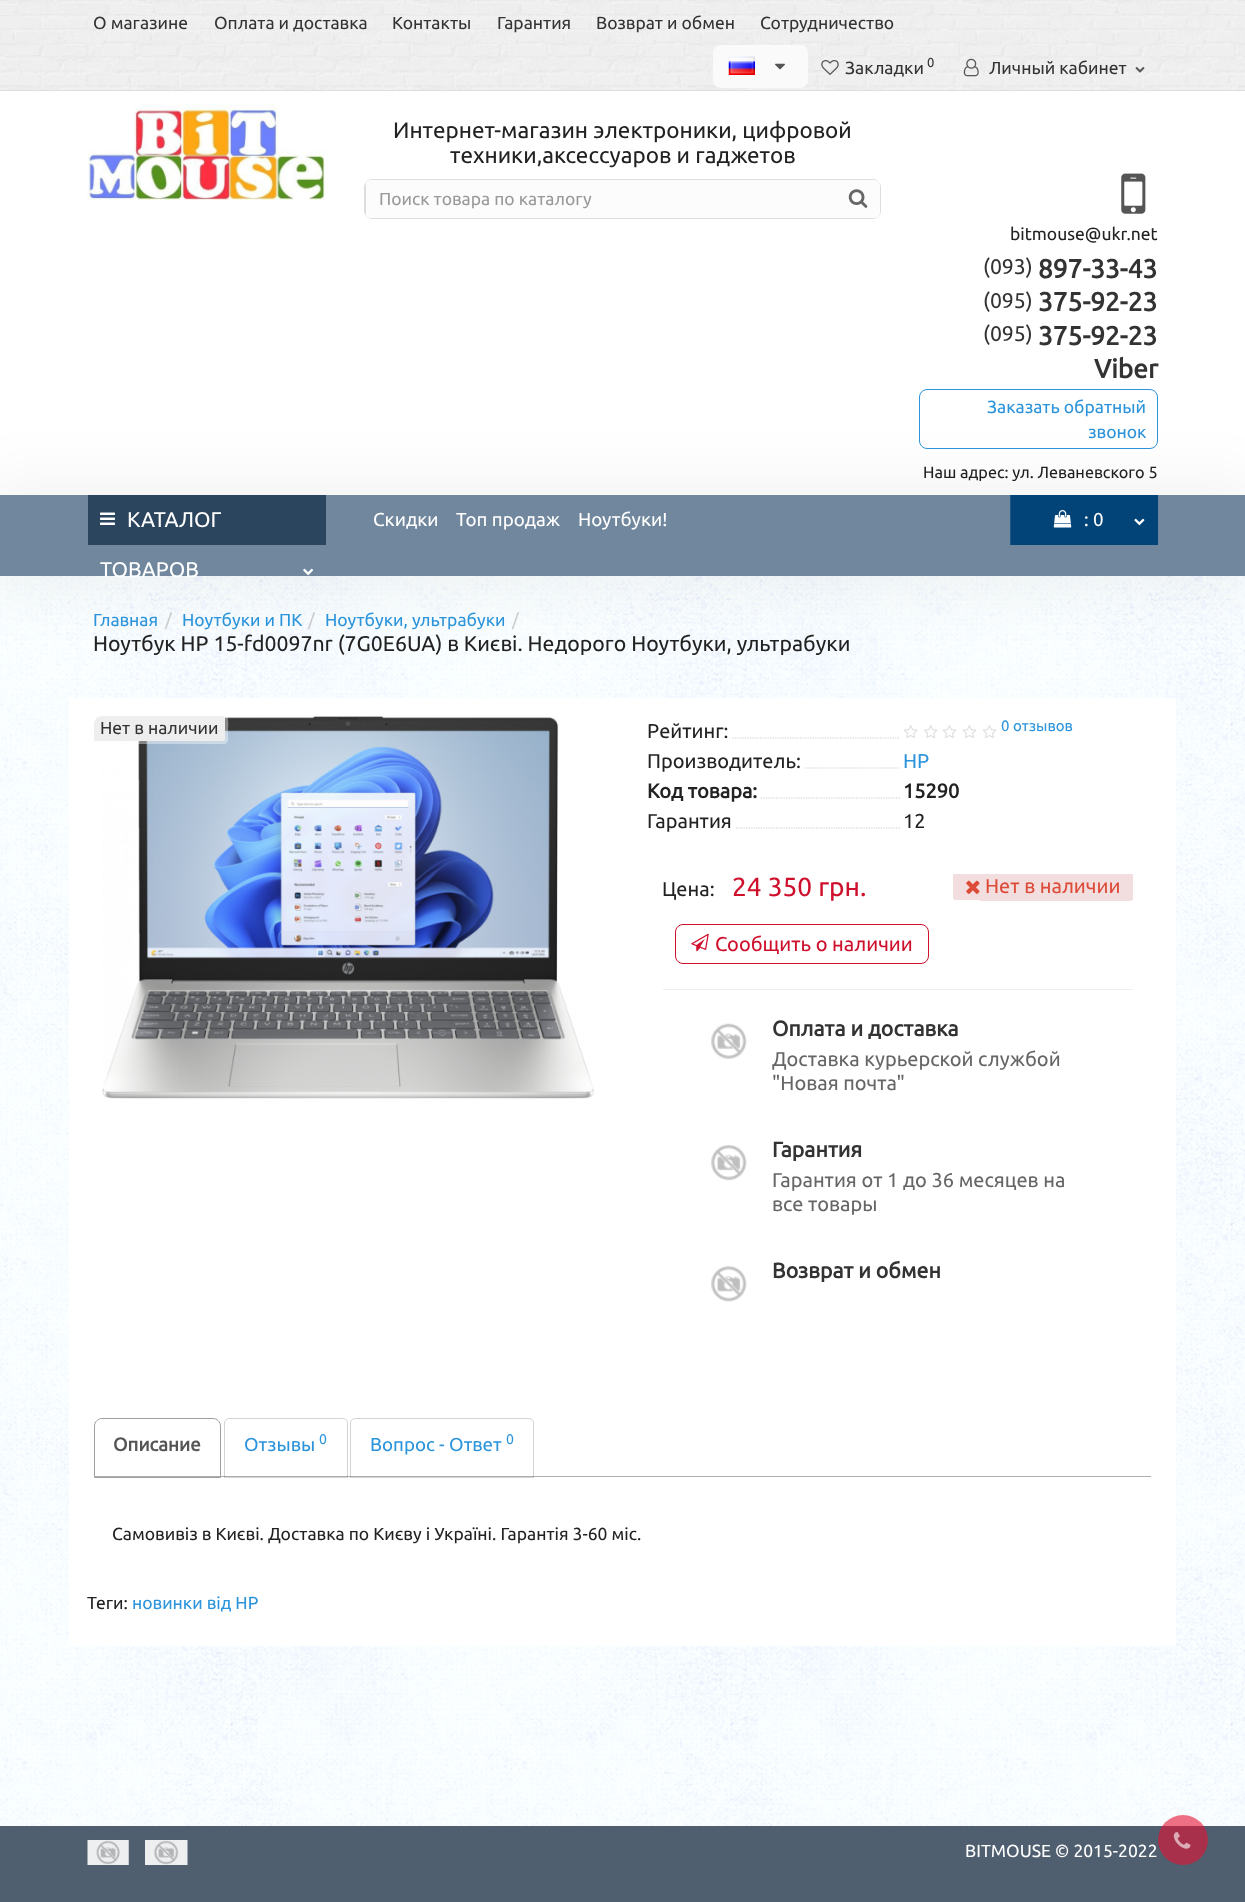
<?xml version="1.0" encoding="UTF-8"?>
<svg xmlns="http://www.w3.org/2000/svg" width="1245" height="1902">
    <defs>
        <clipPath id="clip1"><rect x="365" y="180" width="515" height="38" rx="6"/></clipPath>
        <filter id="blur1" x="-50%" y="-200%" width="200%" height="500%"><feGaussianBlur stdDeviation="31"/></filter>
        <clipPath id="clip2"><rect x="648" y="716" width="252" height="30"/></clipPath>
        <clipPath id="clip3"><rect x="648" y="746" width="252" height="30"/></clipPath>
        <clipPath id="clip4"><rect x="648" y="776" width="252" height="30"/></clipPath>
        <clipPath id="clip5"><rect x="648" y="806" width="252" height="30"/></clipPath>
        <clipPath id="clip6"><rect x="660" y="874" width="473" height="27"/></clipPath>
    </defs>
    <rect width="100%" height="100%" fill="#FFFFFF"/>
    <image x="0" y="576" width="1245" height="1250" href="img_01.png"/>
    <image x="0" y="0" width="1245" height="90" href="img_02.png"/>
    <rect x="0" y="0" width="1245" height="90" fill="#FFFFFF" fill-opacity="0.2"/>
    <rect x="0" y="90" width="1245" height="1" fill="#DDDDDD"/>
    <text x="93" y="29" font-family="Ubuntu" font-size="17.5" fill="#333333">О магазине</text>
    <text x="214" y="29" font-family="Ubuntu" font-size="17.5" fill="#333333">Оплата и доставка</text>
    <text x="392" y="29" font-family="Ubuntu" font-size="17.5" fill="#333333">Контакты</text>
    <text x="497" y="29" font-family="Ubuntu" font-size="17.5" fill="#333333">Гарантия</text>
    <text x="596" y="29" font-family="Ubuntu" font-size="17.5" fill="#333333">Возврат и обмен</text>
    <text x="760" y="29" font-family="Ubuntu" font-size="17.5" fill="#333333">Сотрудничество</text>
    <rect x="713" y="45" width="95" height="43" rx="8" fill="#FAFAFA"/>
    <image x="728" y="56" width="27" height="19" href="img_03.png"/>
    <image x="775" y="63" width="10" height="7" href="img_04.png"/>
    <image x="821" y="60" width="18" height="15" href="img_05.png"/>
    <text x="845" y="74" font-family="Ubuntu" font-size="17.5" fill="#333333">Закладки</text>
    <text x="927" y="67" font-family="Ubuntu" font-size="13" fill="#333333">0</text>
    <image x="963" y="58" width="16" height="19" href="img_06.png"/>
    <text x="989" y="74" font-family="Ubuntu" font-size="17.5" fill="#333333">Личный кабинет</text>
    <image x="1135" y="67" width="10" height="6" href="img_07.png"/>
    <image x="87" y="104" width="238" height="96" href="img_08.png"/>
    <text x="393" y="138" font-family="Ubuntu" font-size="22.5" fill="#222222">Интернет-магазин электроники, цифровой</text>
    <text x="450" y="163" font-family="Ubuntu" font-size="22.5" fill="#222222">техники,аксессуаров и гаджетов</text>
    <rect x="364.5" y="179.5" width="516" height="39" rx="7.5" fill="#FCFCFC" stroke="#DDDDDD"/>
    <path d="M 371 180 H 836 V 218 H 371 C 367.5 218 365 215.5 365 212 V 186 C 365 182.5 367.5 180 371 180 Z" fill="#FCFCFC"/>
    <g clip-path="url(#clip1)">
        <rect x="365" y="181" width="1" height="35" fill="#DDDDDD"/>
    </g>
    <text x="379" y="205" font-family="Ubuntu" font-size="17.5" fill="#999999">Поиск товара по каталогу</text>
    <path d="M 838.5 180 H 874 C 877.5 180 880 182.5 880 186 V 212 C 880 215.5 877.5 218 874 218 H 838.5 C 837 218 836 217 836 215.5 V 182.5 C 836 181 837 180 838.5 180 Z" fill="#FCFCFC"/>
    <image x="848" y="189" width="20" height="19" href="img_09.png"/>
    <image x="1121" y="173" width="25" height="41" href="img_10.png"/>
    <text x="1010" y="240" font-family="Ubuntu" font-size="17.5" fill="#222222">bitmouse@ukr.net</text>
    <text x="983" y="274" font-family="Ubuntu" font-size="21.25" fill="#333333">(093)</text>
    <text x="1038" y="278" font-family="Ubuntu" font-size="26.25" font-weight="700" fill="#333333">897-33-43</text>
    <text x="983" y="308" font-family="Ubuntu" font-size="21.25" fill="#333333">(095)</text>
    <text x="1038" y="311" font-family="Ubuntu" font-size="26.25" font-weight="700" fill="#333333">375-92-23</text>
    <text x="983" y="341" font-family="Ubuntu" font-size="21.25" fill="#333333">(095)</text>
    <text x="1038" y="345" font-family="Ubuntu" font-size="26.25" font-weight="700" fill="#333333">375-92-23</text>
    <text x="1094" y="378" font-family="Ubuntu" font-size="26.25" font-weight="700" fill="#333333">Viber</text>
    <rect x="919.5" y="389.5" width="238" height="59" rx="7.5" fill="none" stroke="#2C94DB"/>
    <text x="987" y="413" font-family="Ubuntu" font-size="17.5" fill="#2C94DB">Заказать обратный</text>
    <text x="1088" y="438" font-family="Ubuntu" font-size="17.5" fill="#2C94DB">звонок</text>
    <text x="923" y="478" font-family="Ubuntu" font-size="16.25" fill="#222222">Наш адрес: ул. Леваневского 5</text>
    <rect x="-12" y="483" width="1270" height="106" fill="#000000" fill-opacity="0.05" filter="url(#blur1)"/>
    <rect x="0" y="495" width="1245" height="81" fill="#70879E"/>
    <rect x="88" y="495" width="238" height="50" fill="#2C455E"/>
    <image x="100" y="512" width="15" height="13" href="img_11.png"/>
    <text x="127" y="527" font-family="Ubuntu" font-size="21.25" fill="#FFFFFF">КАТАЛОГ</text>
    <text x="100" y="577" font-family="Ubuntu" font-size="21.25" fill="#FFFFFF">ТОВАРОВ</text>
    <image x="303" y="568" width="11" height="8" href="img_12.png"/>
    <text x="373" y="526" font-family="Ubuntu" font-size="18.75" fill="#FFFFFF">Скидки</text>
    <text x="456" y="526" font-family="Ubuntu" font-size="18.75" fill="#FFFFFF">Топ продаж</text>
    <text x="578" y="526" font-family="Ubuntu" font-size="18.75" fill="#FFFFFF">Ноутбуки!</text>
    <rect x="1011" y="495" width="147" height="50" fill="#034478"/>
    <rect x="1010" y="495" width="1" height="50" fill="#215683"/>
    <image x="1053" y="510" width="19" height="18" href="img_13.png"/>
    <text x="1084" y="526" font-family="Ubuntu" font-size="18.75" fill="#FFFFFF">: 0</text>
    <image x="1134" y="518" width="11" height="8" href="img_14.png"/>
    <text x="512" y="626" font-family="Ubuntu" font-size="17.5" fill="#CCCCCC">/</text>
    <text x="93" y="651" font-family="Ubuntu" font-size="21.25" fill="#222222">Ноутбук HP 15-fd0097nr (7G0E6UA) в Києві. Недорого Ноутбуки, ультрабуки</text>
    <text x="93" y="626" font-family="Ubuntu" font-size="17.5" fill="#2C94DB">Главная</text>
    <text x="165" y="626" font-family="Ubuntu" font-size="17.5" fill="#CCCCCC">/</text>
    <text x="182" y="626" font-family="Ubuntu" font-size="17.5" fill="#2C94DB">Ноутбуки и ПК</text>
    <text x="308" y="626" font-family="Ubuntu" font-size="17.5" fill="#CCCCCC">/</text>
    <text x="325" y="626" font-family="Ubuntu" font-size="17.5" fill="#2C94DB">Ноутбуки, ультрабуки</text>
    <rect x="69" y="698" width="1107" height="948" fill="#FFFFFF"/>
    <image x="102" y="716" width="493" height="383" href="img_15.png"/>
    <path d="M 102 716 H 227 C 229 719 228 729 228 733 C 228 736 230 744 224 744 H 94 V 740 C 94 741 94 741 95 741 H 224 C 225 741 225 741 225 740 V 718 C 225 717 225 717 224 717 H 98 Z" fill="#FFFFFF" fill-opacity="0.4"/>
    <path d="M 102 716 H 224 C 224.5 716 225 716.5 225 717 V 740 C 225 740.5 224.5 741 224 741 H 95 C 94.5 741 94 740.5 94 740 V 724 C 94 719.5 97.5 716 102 716 Z" fill="#EEEEEE"/>
    <text x="100" y="734" font-family="Ubuntu" font-size="17.5" fill="#333333">Нет в наличии</text>
    <text x="647" y="738" font-family="Ubuntu" font-size="20" fill="#222222">Рейтинг:</text>
    <g clip-path="url(#clip2)">
        <path d="M 732.5 738 H 985" fill="none" stroke="#CCCCCC" stroke-width="1.2" stroke-dasharray="1.25 1.25"/>
    </g>
    <image x="904" y="725" width="14" height="13" href="img_16.png"/>
    <image x="924" y="725" width="14" height="13" href="img_16.png"/>
    <image x="942" y="725" width="15" height="13" href="img_17.png"/>
    <image x="962" y="725" width="15" height="13" href="img_17.png"/>
    <image x="982" y="725" width="15" height="13" href="img_17.png"/>
    <text x="1001" y="731" font-family="Ubuntu" font-size="15" fill="#2C94DB">0 отзывов</text>
    <text x="647" y="768" font-family="Ubuntu" font-size="20" fill="#222222">Производитель:</text>
    <g clip-path="url(#clip3)">
        <path d="M 805 768 H 1057.5" fill="none" stroke="#CCCCCC" stroke-width="1.2" stroke-dasharray="1.25 1.25"/>
    </g>
    <text x="903" y="768" font-family="Ubuntu" font-size="20" fill="#2C94DB">HP</text>
    <text x="647" y="798" font-family="Ubuntu" font-size="20" font-weight="700" fill="#222222">Код товара:</text>
    <g clip-path="url(#clip4)">
        <path d="M 761 798 H 1014" fill="none" stroke="#CCCCCC" stroke-width="1.2" stroke-dasharray="1.25 1.25"/>
    </g>
    <text x="903" y="798" font-family="Ubuntu" font-size="20" font-weight="700" fill="#222222">15290</text>
    <text x="647" y="828" font-family="Ubuntu" font-size="20" fill="#222222">Гарантия</text>
    <g clip-path="url(#clip5)">
        <path d="M 736 828 H 987.5" fill="none" stroke="#CCCCCC" stroke-width="1.2" stroke-dasharray="1.25 1.25"/>
    </g>
    <text x="903" y="828" font-family="Ubuntu" font-size="20" fill="#222222">12</text>
    <text x="662" y="896" font-family="Ubuntu" font-size="20" fill="#222222">Цена:</text>
    <text x="732" y="896" font-family="Ubuntu" font-size="26.25" fill="#CF102D">24 350 грн.</text>
    <g clip-path="url(#clip6)">
        <path d="M 955.5 873 H 980 V 900 H 955.5 C 954 900 953 899 953 897.5 V 875.5 C 953 874 954 873 955.5 873 Z" fill="#F2DEDE"/>
    </g>
    <path d="M 980 874 H 1133 V 898.5 C 1133 900 1132 901 1130.5 901 H 980 Z" fill="#F2DEDE"/>
    <image x="966" y="880" width="14" height="14" href="img_18.png"/>
    <text x="985" y="893" font-family="Ubuntu" font-size="20" fill="#DD4B39">Нет в наличии</text>
    <rect x="675.5" y="924.5" width="253" height="39" rx="7.5" fill="none" stroke="#CF102D"/>
    <image x="691" y="933" width="18" height="19" href="img_19.png"/>
    <text x="715" y="951" font-family="Ubuntu" font-size="20" fill="#CF102D">Сообщить о наличии</text>
    <rect x="663" y="989" width="470" height="1" fill="#EEEEEE"/>
    <image x="711" y="1023" width="36" height="36" href="img_20.png"/>
    <text x="772" y="1036" font-family="Ubuntu" font-size="21.25" font-weight="700" fill="#333333">Оплата и доставка</text>
    <text font-family="Ubuntu" font-size="20" fill="#666666">
        <tspan x="772" y="1066">Доставка курьерской службой</tspan>
        <tspan x="772" y="1090">"Новая почта"</tspan>
    </text>
    <image x="711" y="1145" width="36" height="36" href="img_21.png"/>
    <text x="772" y="1157" font-family="Ubuntu" font-size="21.25" font-weight="700" fill="#333333">Гарантия</text>
    <text font-family="Ubuntu" font-size="20" fill="#666666">
        <tspan x="772" y="1187">Гарантия от 1 до 36 месяцев на</tspan>
        <tspan x="772" y="1211">все товары</tspan>
    </text>
    <image x="711" y="1266" width="36" height="36" href="img_22.png"/>
    <text x="772" y="1278" font-family="Ubuntu" font-size="21.25" font-weight="700" fill="#333333">Возврат и обмен</text>
    <rect x="94" y="1476" width="1057" height="1" fill="#ADADAD"/>
    <path d="M 102 1418.5 H 213 C 217 1418.5 220.5 1422 220.5 1426 V 1477.5 H 94.5 V 1426 C 94.5 1422 98 1418.5 102 1418.5 Z" fill="none" stroke="#9F9F9F"/>
    <text x="113" y="1451" font-family="Ubuntu" font-size="18.75" font-weight="700" fill="#555555">Описание</text>
    <path d="M 229 1418.5 H 343 C 345.5 1418.5 347.5 1420.5 347.5 1423 V 1477.5 H 224.5 V 1423 C 224.5 1420.5 226.5 1418.5 229 1418.5 Z" fill="none" stroke="#000000" stroke-opacity="0.17"/>
    <text x="244" y="1451" font-family="Ubuntu" font-size="18.75" fill="#2C94DB">Отзывы</text>
    <text x="319" y="1444" font-family="Ubuntu" font-size="14" fill="#2C94DB">0</text>
    <path d="M 355 1418.5 H 529 C 531.5 1418.5 533.5 1420.5 533.5 1423 V 1477.5 H 350.5 V 1423 C 350.5 1420.5 352.5 1418.5 355 1418.5 Z" fill="none" stroke="#000000" stroke-opacity="0.17"/>
    <text x="370" y="1451" font-family="Ubuntu" font-size="18.75" fill="#2C94DB">Вопрос - Ответ</text>
    <text x="506" y="1444" font-family="Ubuntu" font-size="14" fill="#2C94DB">0</text>
    <text x="112" y="1540" font-family="Ubuntu" font-size="17.5" fill="#222222">Самовивіз в Києві. Доставка по Києву і Україні. Гарантія 3-60 міс.</text>
    <text x="87" y="1609" font-family="Ubuntu" font-size="17.5" fill="#222222">Теги:</text>
    <text x="132" y="1609" font-family="Ubuntu" font-size="17.5" fill="#2C94DB">новинки від HP</text>
    <rect x="0" y="1826" width="1245" height="76" fill="#4F5F6F"/>
    <image x="87" y="1840" width="42" height="25" href="img_23.png"/>
    <image x="145" y="1840" width="43" height="25" href="img_24.png"/>
    <text x="965" y="1857" font-family="Ubuntu" font-size="17.5" fill="#FFFFFF">BITMOUSE © 2015-2022</text>
    <circle cx="1183" cy="1840" r="25" fill="#E61132" fill-opacity="0.6"/>
    <image x="1173" y="1832" width="18" height="17" href="img_25.png"/>
</svg>
